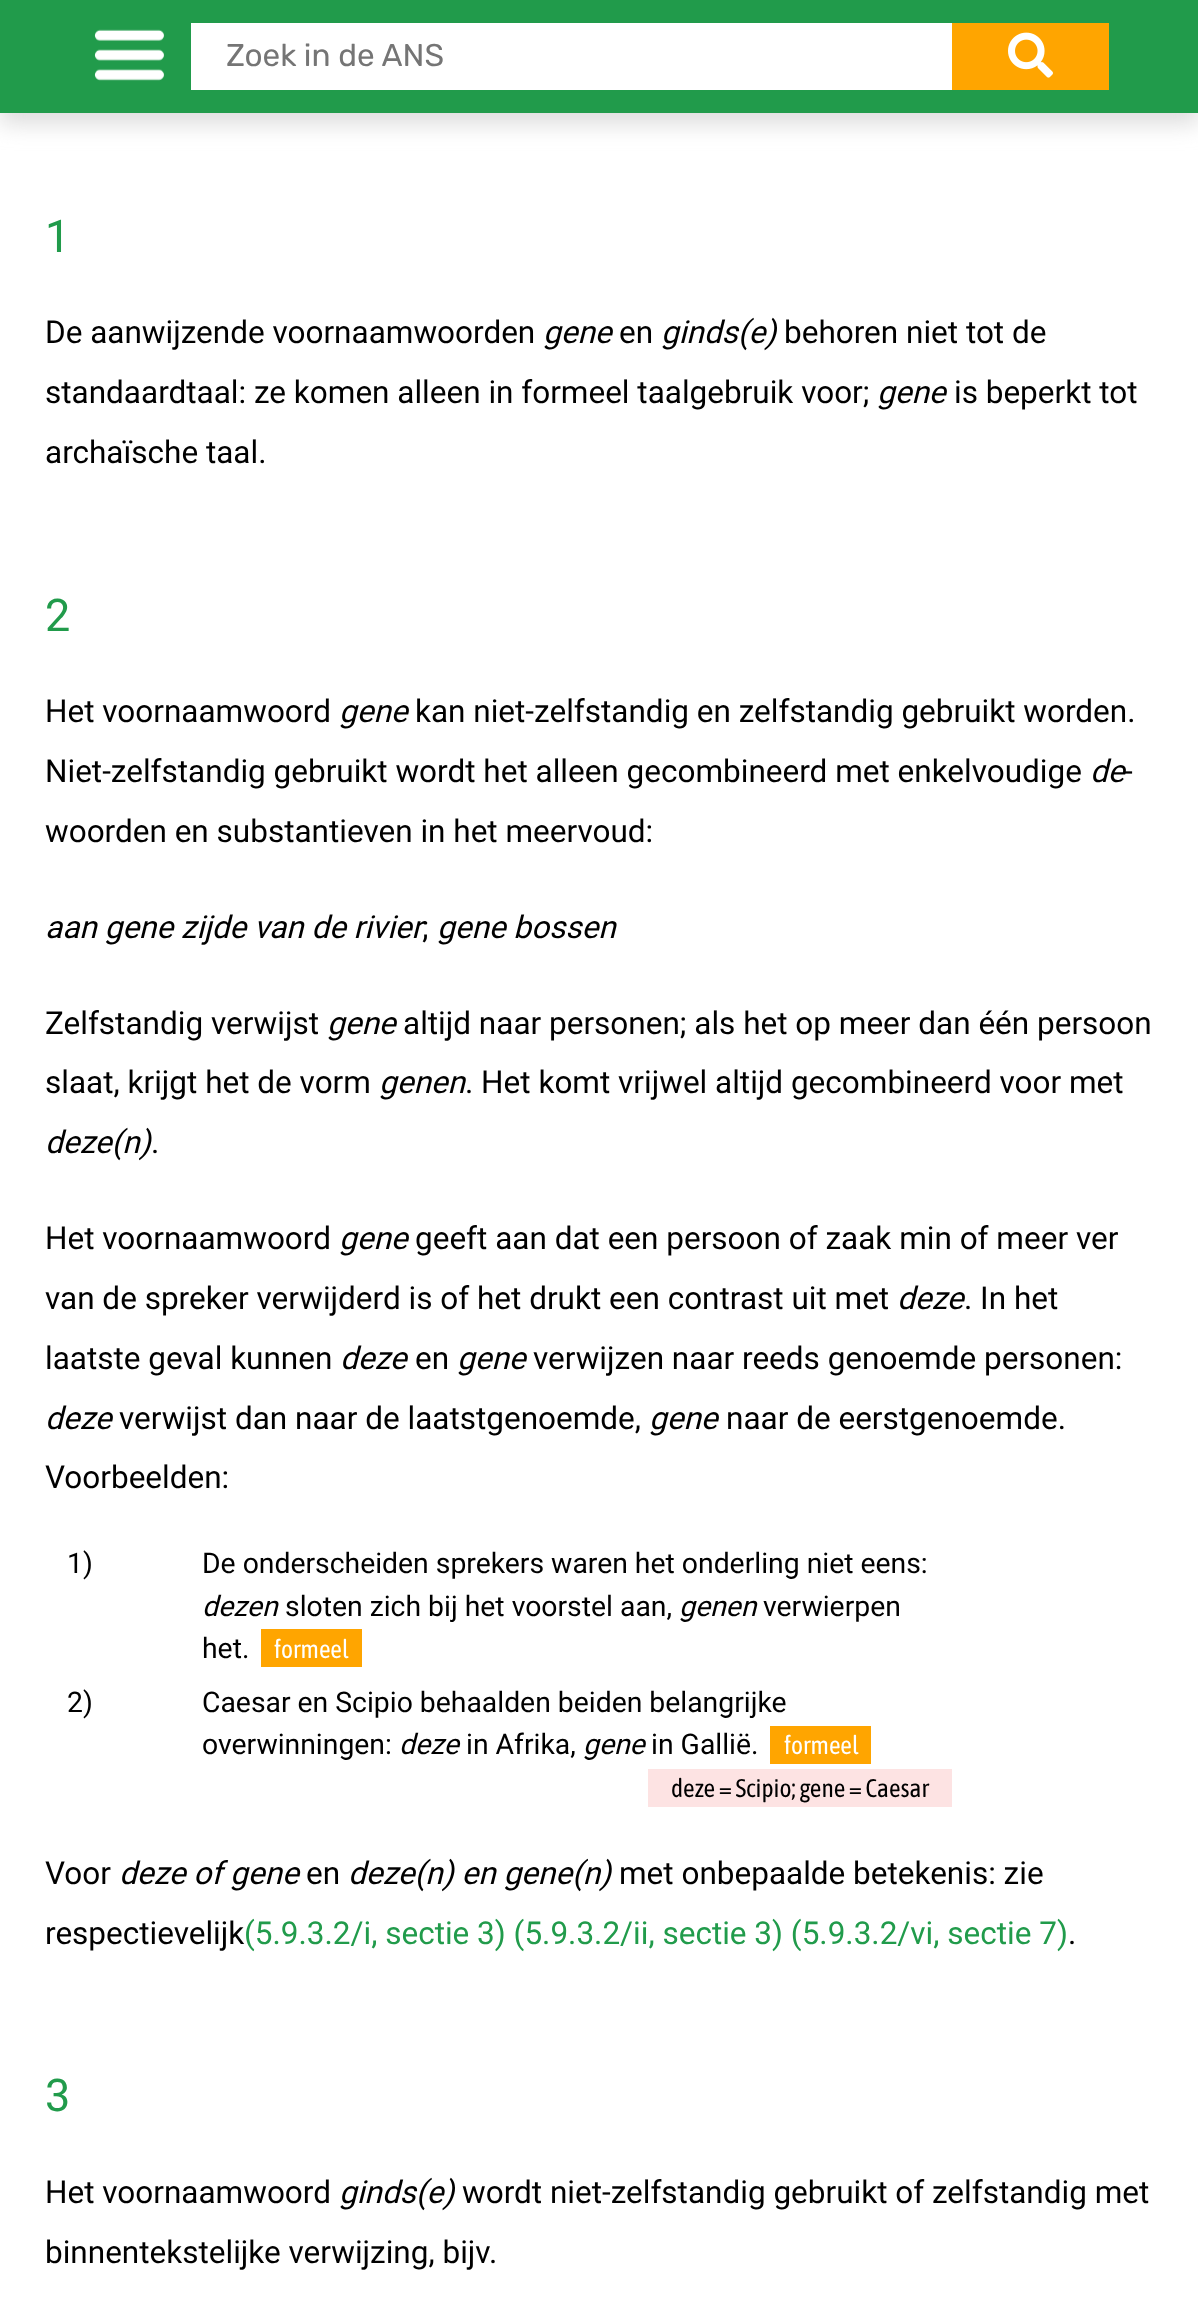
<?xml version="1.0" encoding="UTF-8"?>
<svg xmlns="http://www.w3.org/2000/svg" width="1198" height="2322">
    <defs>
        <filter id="blur1" x="-50%" y="-200%" width="200%" height="500%"><feGaussianBlur stdDeviation="11"/></filter>
    </defs>
    <rect width="100%" height="100%" fill="#FFFFFF"/>
    <rect x="0" y="11" width="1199" height="113" fill="#DDDDDD" filter="url(#blur1)"/>
    <rect x="0" y="0" width="1198" height="113" fill="#219B4B"/>
    <image x="94" y="29" width="71" height="52" href="img_01.png"/>
    <rect x="191" y="23" width="761" height="67" fill="#FFFFFF"/>
    <text x="226" y="66" font-family="Rubik" font-size="31.5" fill="#757575">Zoek in de ANS</text>
    <rect x="952" y="23" width="157" height="67" fill="#FFA500"/>
    <image x="1008" y="32" width="45" height="46" href="img_02.png"/>
    <text x="45" y="252" font-family="Roboto" font-size="45" fill="#219B4B">1</text>
    <text x="45" y="343" font-family="Roboto" font-size="31.5" fill="#000000">De aanwijzende voornaamwoorden</text>
    <text x="543" y="343" font-family="Roboto" font-size="31.5" font-style="italic" fill="#000000">gene</text>
    <text x="619" y="343" font-family="Roboto" font-size="31.5" fill="#000000">en</text>
    <text x="661" y="343" font-family="Roboto" font-size="31.5" font-style="italic" fill="#000000">ginds(e)</text>
    <text x="784" y="343" font-family="Roboto" font-size="31.5" fill="#000000">behoren niet tot de</text>
    <text x="45" y="403" font-family="Roboto" font-size="31.5" fill="#000000">standaardtaal: ze komen alleen in formeel taalgebruik voor;</text>
    <text x="877" y="403" font-family="Roboto" font-size="31.5" font-style="italic" fill="#000000">gene</text>
    <text x="954" y="403" font-family="Roboto" font-size="31.5" fill="#000000">is beperkt tot</text>
    <text x="45" y="463" font-family="Roboto" font-size="31.5" fill="#000000">archaïsche taal.</text>
    <text x="45" y="631" font-family="Roboto" font-size="45" fill="#219B4B">2</text>
    <text x="45" y="722" font-family="Roboto" font-size="31.5" fill="#000000">Het voornaamwoord</text>
    <text x="339" y="722" font-family="Roboto" font-size="31.5" font-style="italic" fill="#000000">gene</text>
    <text x="415" y="722" font-family="Roboto" font-size="31.5" fill="#000000">kan niet-zelfstandig en zelfstandig gebruikt worden.</text>
    <text x="45" y="782" font-family="Roboto" font-size="31.5" fill="#000000">Niet-zelfstandig gebruikt wordt het alleen gecombineerd met enkelvoudige</text>
    <text x="1090" y="782" font-family="Roboto" font-size="31.5" font-style="italic" fill="#000000">de</text>
    <text x="1124" y="782" font-family="Roboto" font-size="31.5" fill="#000000">-</text>
    <text x="45" y="842" font-family="Roboto" font-size="31.5" fill="#000000">woorden en substantieven in het meervoud:</text>
    <text x="45" y="938" font-family="Roboto" font-size="31.5" font-style="italic" fill="#000000">aan gene zijde van de rivier</text>
    <text x="437" y="938" font-family="Roboto" font-size="31.5" font-style="italic" fill="#000000">gene bossen</text>
    <text x="422" y="938" font-family="Roboto" font-size="31.5" fill="#000000">;</text>
    <text x="45" y="1034" font-family="Roboto" font-size="31.5" fill="#000000">Zelfstandig verwijst</text>
    <text x="327" y="1034" font-family="Roboto" font-size="31.5" font-style="italic" fill="#000000">gene</text>
    <text x="403" y="1034" font-family="Roboto" font-size="31.5" fill="#000000">altijd naar personen; als het op meer dan één persoon</text>
    <text x="45" y="1093" font-family="Roboto" font-size="31.5" fill="#000000">slaat, krijgt het de vorm</text>
    <text x="379" y="1093" font-family="Roboto" font-size="31.5" font-style="italic" fill="#000000">genen</text>
    <text x="465" y="1093" font-family="Roboto" font-size="31.5" fill="#000000">. Het komt vrijwel altijd gecombineerd voor met</text>
    <text x="45" y="1153" font-family="Roboto" font-size="31.5" font-style="italic" fill="#000000">deze(n)</text>
    <text x="151" y="1153" font-family="Roboto" font-size="31.5" fill="#000000">.</text>
    <text x="45" y="1249" font-family="Roboto" font-size="31.5" fill="#000000">Het voornaamwoord</text>
    <text x="339" y="1249" font-family="Roboto" font-size="31.5" font-style="italic" fill="#000000">gene</text>
    <text x="415" y="1249" font-family="Roboto" font-size="31.5" fill="#000000">geeft aan dat een persoon of zaak min of meer ver</text>
    <text x="45" y="1309" font-family="Roboto" font-size="31.5" fill="#000000">van de spreker verwijderd is of het drukt een contrast uit met</text>
    <text x="897" y="1309" font-family="Roboto" font-size="31.5" font-style="italic" fill="#000000">deze</text>
    <text x="964" y="1309" font-family="Roboto" font-size="31.5" fill="#000000">. In het</text>
    <text x="45" y="1369" font-family="Roboto" font-size="31.5" fill="#000000">laatste geval kunnen</text>
    <text x="340" y="1369" font-family="Roboto" font-size="31.5" font-style="italic" fill="#000000">deze</text>
    <text x="415" y="1369" font-family="Roboto" font-size="31.5" fill="#000000">en</text>
    <text x="457" y="1369" font-family="Roboto" font-size="31.5" font-style="italic" fill="#000000">gene</text>
    <text x="533" y="1369" font-family="Roboto" font-size="31.5" fill="#000000">verwijzen naar reeds genoemde personen:</text>
    <text x="45" y="1429" font-family="Roboto" font-size="31.5" font-style="italic" fill="#000000">deze</text>
    <text x="119" y="1429" font-family="Roboto" font-size="31.5" fill="#000000">verwijst dan naar de laatstgenoemde,</text>
    <text x="649" y="1429" font-family="Roboto" font-size="31.5" font-style="italic" fill="#000000">gene</text>
    <text x="726" y="1429" font-family="Roboto" font-size="31.5" fill="#000000">naar de eerstgenoemde.</text>
    <text x="45" y="1488" font-family="Roboto" font-size="31.5" fill="#000000">Voorbeelden:</text>
    <text x="67" y="1573" font-family="Roboto" font-size="28.35" fill="#000000">1)</text>
    <text x="202" y="1573" font-family="Roboto" font-size="28.35" fill="#000000">De onderscheiden sprekers waren het onderling niet eens:</text>
    <text x="202" y="1616" font-family="Roboto" font-size="28.35" font-style="italic" fill="#000000">dezen</text>
    <text x="285" y="1616" font-family="Roboto" font-size="28.35" fill="#000000">sloten zich bij het voorstel aan,</text>
    <text x="679" y="1616" font-family="Roboto" font-size="28.35" font-style="italic" fill="#000000">genen</text>
    <text x="763" y="1616" font-family="Roboto" font-size="28.35" fill="#000000">verwierpen</text>
    <text x="202" y="1658" font-family="Roboto" font-size="28.35" fill="#000000">het.</text>
    <rect x="261" y="1629" width="101" height="38" fill="#FFA500"/>
    <text x="274" y="1658" font-family="Asap Condensed" font-size="25.5" fill="#FFFFFF">formeel</text>
    <text x="67" y="1712" font-family="Roboto" font-size="28.35" fill="#000000">2)</text>
    <text font-family="Roboto" font-size="28.35" fill="#000000">
        <tspan x="202" y="1712">Caesar en Scipio behaalden beiden belangrijke</tspan>
        <tspan x="202" y="1754">overwinningen:</tspan>
    </text>
    <text x="399" y="1754" font-family="Roboto" font-size="28.35" font-style="italic" fill="#000000">deze</text>
    <text x="466" y="1754" font-family="Roboto" font-size="28.35" fill="#000000">in Afrika,</text>
    <text x="583" y="1754" font-family="Roboto" font-size="28.35" font-style="italic" fill="#000000">gene</text>
    <text x="651" y="1754" font-family="Roboto" font-size="28.35" fill="#000000">in Gallië.</text>
    <rect x="770" y="1726" width="101" height="38" fill="#FFA500"/>
    <text x="784" y="1754" font-family="Asap Condensed" font-size="25.5" fill="#FFFFFF">formeel</text>
    <rect x="648" y="1769" width="304" height="38" fill="#FDE3E3"/>
    <text x="671" y="1797" font-family="Asap Condensed" font-size="25.5" fill="#000000">deze = Scipio; gene = Caesar</text>
    <text x="45" y="1884" font-family="Roboto" font-size="31.5" fill="#000000">Voor</text>
    <text x="119" y="1884" font-family="Roboto" font-size="31.5" font-style="italic" fill="#000000">deze of gene</text>
    <text x="306" y="1884" font-family="Roboto" font-size="31.5" fill="#000000">en</text>
    <text x="348" y="1884" font-family="Roboto" font-size="31.5" font-style="italic" fill="#000000">deze(n) en gene(n)</text>
    <text x="619" y="1884" font-family="Roboto" font-size="31.5" fill="#000000">met onbepaalde betekenis: zie</text>
    <text x="45" y="1944" font-family="Roboto" font-size="31.5" fill="#000000">respectievelijk</text>
    <text x="244" y="1944" font-family="Roboto" font-size="31.5" fill="#219B4B">(5.9.3.2/i, sectie 3) (5.9.3.2/ii, sectie 3) (5.9.3.2/vi, sectie 7)</text>
    <text x="1068" y="1944" font-family="Roboto" font-size="31.5" fill="#000000">.</text>
    <text x="45" y="2111" font-family="Roboto" font-size="45" fill="#219B4B">3</text>
    <text x="45" y="2203" font-family="Roboto" font-size="31.5" fill="#000000">Het voornaamwoord</text>
    <text x="339" y="2203" font-family="Roboto" font-size="31.5" font-style="italic" fill="#000000">ginds(e)</text>
    <text x="462" y="2203" font-family="Roboto" font-size="31.5" fill="#000000">wordt niet-zelfstandig gebruikt of zelfstandig met</text>
    <text x="45" y="2263" font-family="Roboto" font-size="31.5" fill="#000000">binnentekstelijke verwijzing, bijv.</text>
</svg>
